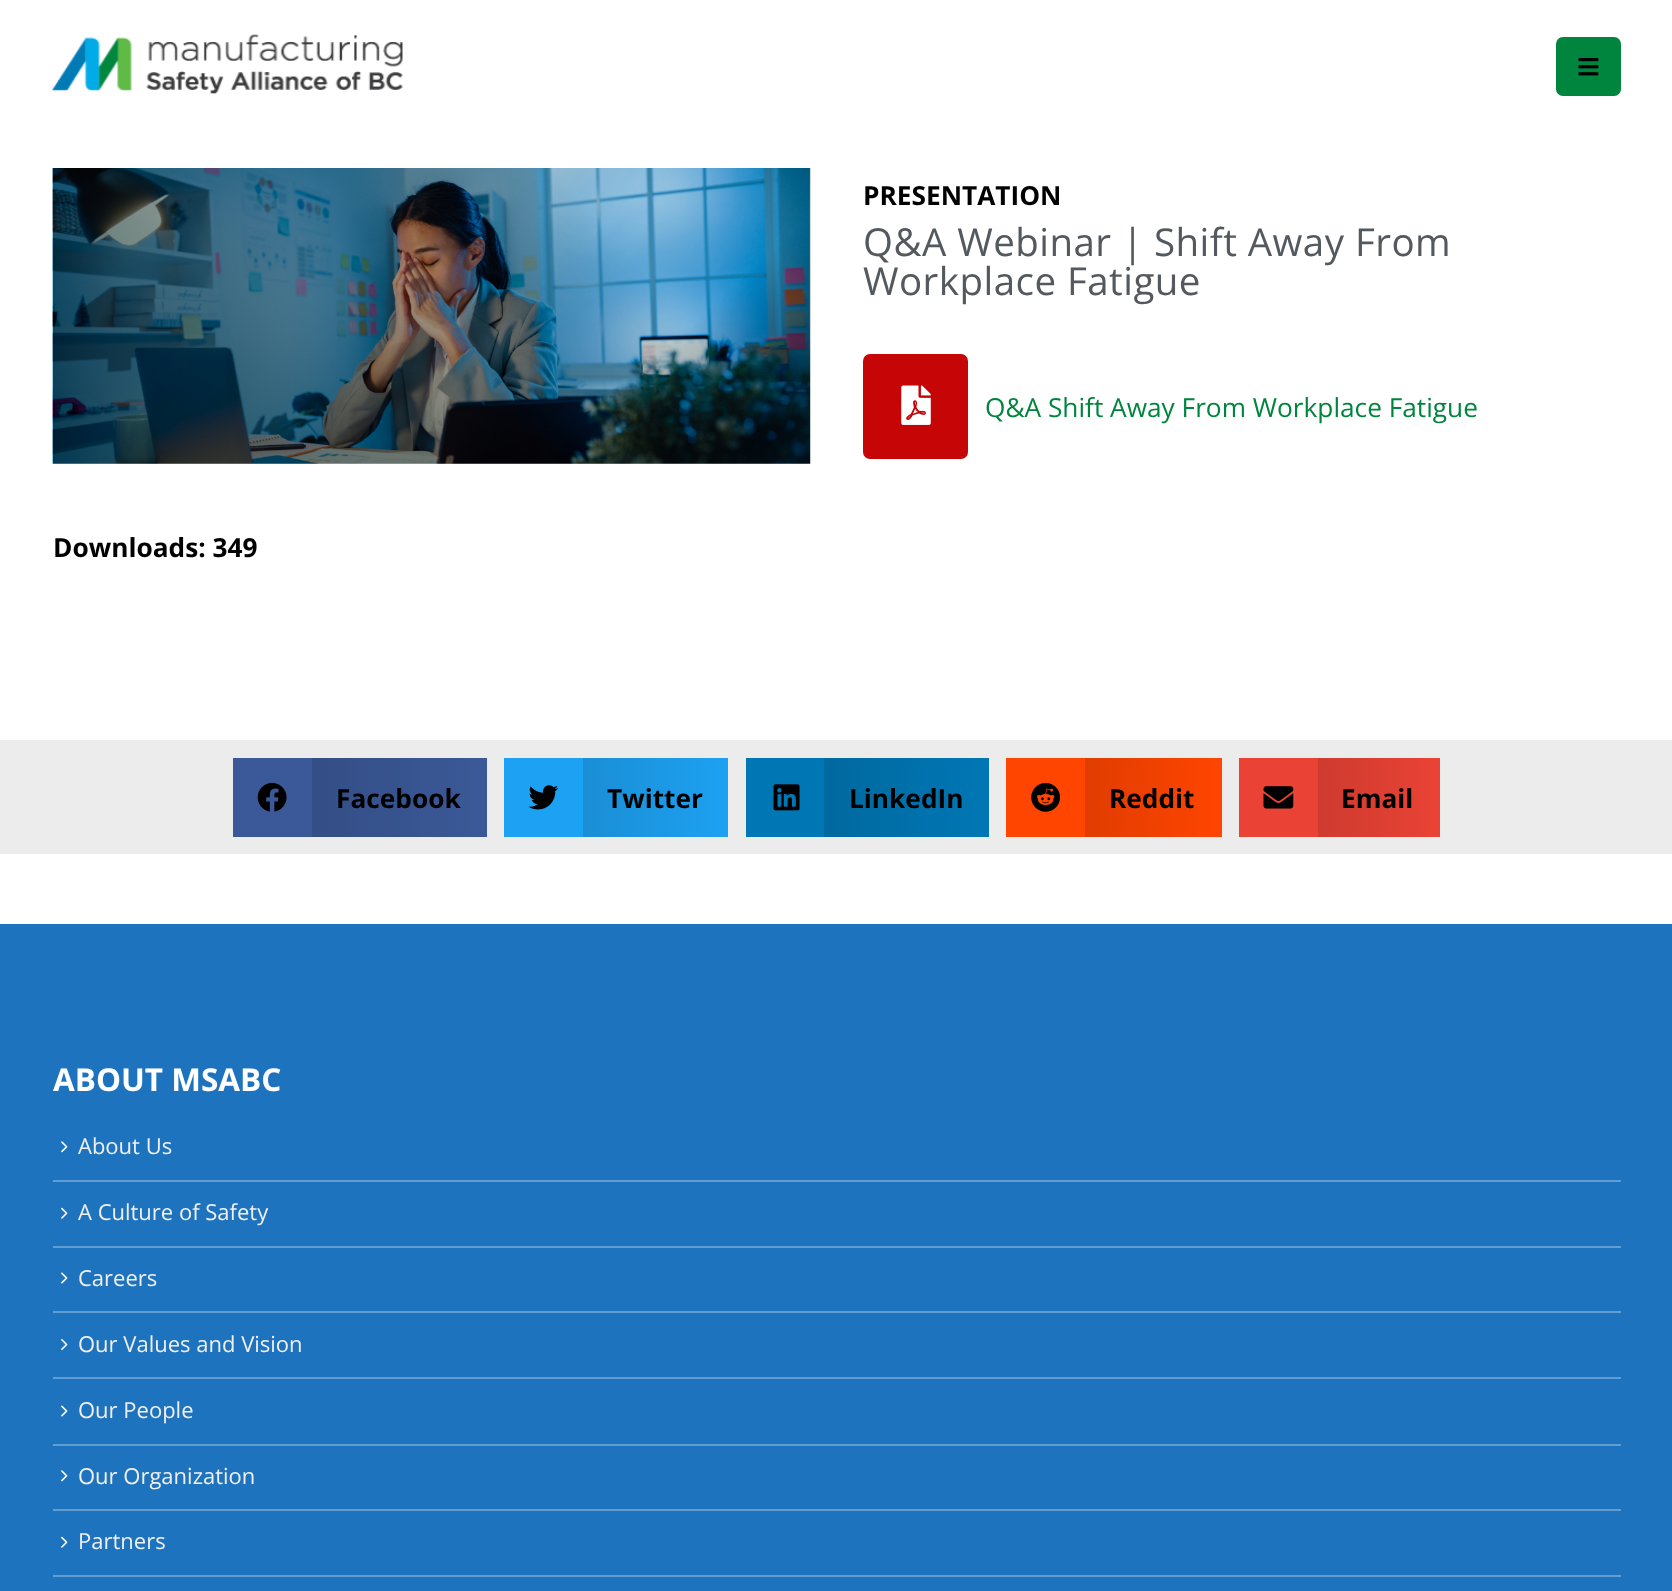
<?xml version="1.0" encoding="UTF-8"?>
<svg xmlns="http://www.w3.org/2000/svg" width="1672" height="1591">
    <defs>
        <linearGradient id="g1" gradientUnits="userSpaceOnUse" x1="312" y1="797" x2="487" y2="797"><stop offset="0" stop-color="#344E86"/><stop offset="1" stop-color="#3B5998"/></linearGradient>
        <linearGradient id="g2" gradientUnits="userSpaceOnUse" x1="583" y1="797" x2="728" y2="797"><stop offset="0" stop-color="#1A8ED5"/><stop offset="1" stop-color="#1DA1F2"/></linearGradient>
        <linearGradient id="g3" gradientUnits="userSpaceOnUse" x1="824" y1="797" x2="989" y2="797"><stop offset="0" stop-color="#00699F"/><stop offset="1" stop-color="#0077B5"/></linearGradient>
        <linearGradient id="g4" gradientUnits="userSpaceOnUse" x1="1085" y1="797" x2="1222" y2="797"><stop offset="0" stop-color="#E03D00"/><stop offset="1" stop-color="#FF4500"/></linearGradient>
        <linearGradient id="g5" gradientUnits="userSpaceOnUse" x1="1318" y1="797" x2="1440" y2="797"><stop offset="0" stop-color="#CE3B2F"/><stop offset="1" stop-color="#EA4335"/></linearGradient>
    </defs>
    <rect width="100%" height="100%" fill="#FFFFFF"/>
    <image x="52" y="34" width="351" height="60" href="img_01.png"/>
    <rect x="1556" y="37" width="65" height="59" rx="7" fill="#00853E"/>
    <image x="1578" y="58" width="21" height="18" href="img_02.png"/>
    <text x="863" y="205" font-family="Open Sans" font-size="26.25" font-weight="700" fill="#000000">PRESENTATION</text>
    <text font-family="Open Sans" font-size="38.5" letter-spacing="0.45" fill="#54595F">
        <tspan x="863" y="256">Q&amp;A Webinar | Shift Away From</tspan>
        <tspan x="863" y="295">Workplace Fatigue</tspan>
    </text>
    <rect x="863" y="354" width="105" height="105" rx="7" fill="#C50506"/>
    <image x="901" y="385" width="30" height="40" href="img_03.png"/>
    <text x="985" y="417" font-family="Open Sans" font-size="26.25" fill="#00853E">Q&amp;A Shift Away From Workplace Fatigue</text>
    <image x="52" y="168" width="759" height="296" href="img_04.png"/>
    <text x="53" y="557" font-family="Open Sans" font-size="26.25" font-weight="700" fill="#000000">Downloads: 349</text>
    <rect x="0" y="740" width="1672" height="114" fill="#ECECEC"/>
    <rect x="233" y="758" width="79" height="79" fill="#3B5998"/>
    <image x="257" y="782" width="30" height="30" href="img_05.png"/>
    <rect x="312" y="758" width="175" height="79" fill="url(#g1)"/>
    <text x="336" y="808" font-family="Open Sans" font-size="26.25" font-weight="700" fill="#000000">Facebook</text>
    <rect x="504" y="758" width="79" height="79" fill="#1DA1F2"/>
    <image x="528" y="785" width="31" height="25" href="img_06.png"/>
    <rect x="583" y="758" width="145" height="79" fill="url(#g2)"/>
    <text x="607" y="808" font-family="Open Sans" font-size="26.25" font-weight="700" fill="#000000">Twitter</text>
    <rect x="746" y="758" width="78" height="79" fill="#0077B5"/>
    <image x="773" y="784" width="27" height="27" href="img_07.png"/>
    <rect x="824" y="758" width="165" height="79" fill="url(#g3)"/>
    <text x="849" y="808" font-family="Open Sans" font-size="26.25" font-weight="700" fill="#000000">LinkedIn</text>
    <rect x="1006" y="758" width="79" height="79" fill="#FF4500"/>
    <image x="1031" y="782" width="29" height="30" href="img_08.png"/>
    <rect x="1085" y="758" width="137" height="79" fill="url(#g4)"/>
    <text x="1109" y="808" font-family="Open Sans" font-size="26.25" font-weight="700" fill="#000000">Reddit</text>
    <rect x="1239" y="758" width="79" height="79" fill="#EA4335"/>
    <image x="1263" y="786" width="31" height="23" href="img_09.png"/>
    <rect x="1318" y="758" width="122" height="79" fill="url(#g5)"/>
    <text x="1341" y="808" font-family="Open Sans" font-size="26.25" font-weight="700" fill="#000000">Email</text>
    <rect x="0" y="924" width="1672" height="667" fill="#1E73BE"/>
    <text x="53" y="1091" font-family="Open Sans" font-size="31.5" font-weight="700" fill="#FFFFFF">ABOUT MSABC</text>
    <image x="61" y="1141" width="7" height="12" href="img_10.png"/>
    <text x="78" y="1154" font-family="Open Sans" font-size="22" fill="#EFEFEF">About Us</text>
    <rect x="53" y="1180" width="1568" height="2" fill="#629DD2"/>
    <image x="61" y="1207" width="7" height="12" href="img_11.png"/>
    <text x="78" y="1220" font-family="Open Sans" font-size="22" fill="#EFEFEF">A Culture of Safety</text>
    <rect x="53" y="1246" width="1568" height="2" fill="#629DD2"/>
    <image x="61" y="1272" width="7" height="12" href="img_12.png"/>
    <text x="78" y="1286" font-family="Open Sans" font-size="22" fill="#EFEFEF">Careers</text>
    <rect x="53" y="1311" width="1568" height="2" fill="#629DD2"/>
    <image x="61" y="1339" width="7" height="11" href="img_13.png"/>
    <text x="78" y="1352" font-family="Open Sans" font-size="22" fill="#EFEFEF">Our Values and Vision</text>
    <rect x="53" y="1377" width="1568" height="2" fill="#629DD2"/>
    <image x="61" y="1405" width="7" height="12" href="img_12.png"/>
    <text x="78" y="1418" font-family="Open Sans" font-size="22" fill="#EFEFEF">Our People</text>
    <rect x="53" y="1444" width="1568" height="2" fill="#629DD2"/>
    <image x="61" y="1470" width="7" height="12" href="img_10.png"/>
    <text x="78" y="1484" font-family="Open Sans" font-size="22" fill="#EFEFEF">Our Organization</text>
    <rect x="53" y="1509" width="1568" height="2" fill="#629DD2"/>
    <image x="61" y="1536" width="7" height="12" href="img_11.png"/>
    <text x="78" y="1549" font-family="Open Sans" font-size="22" fill="#EFEFEF">Partners</text>
    <rect x="53" y="1575" width="1568" height="2" fill="#629DD2"/>
</svg>
